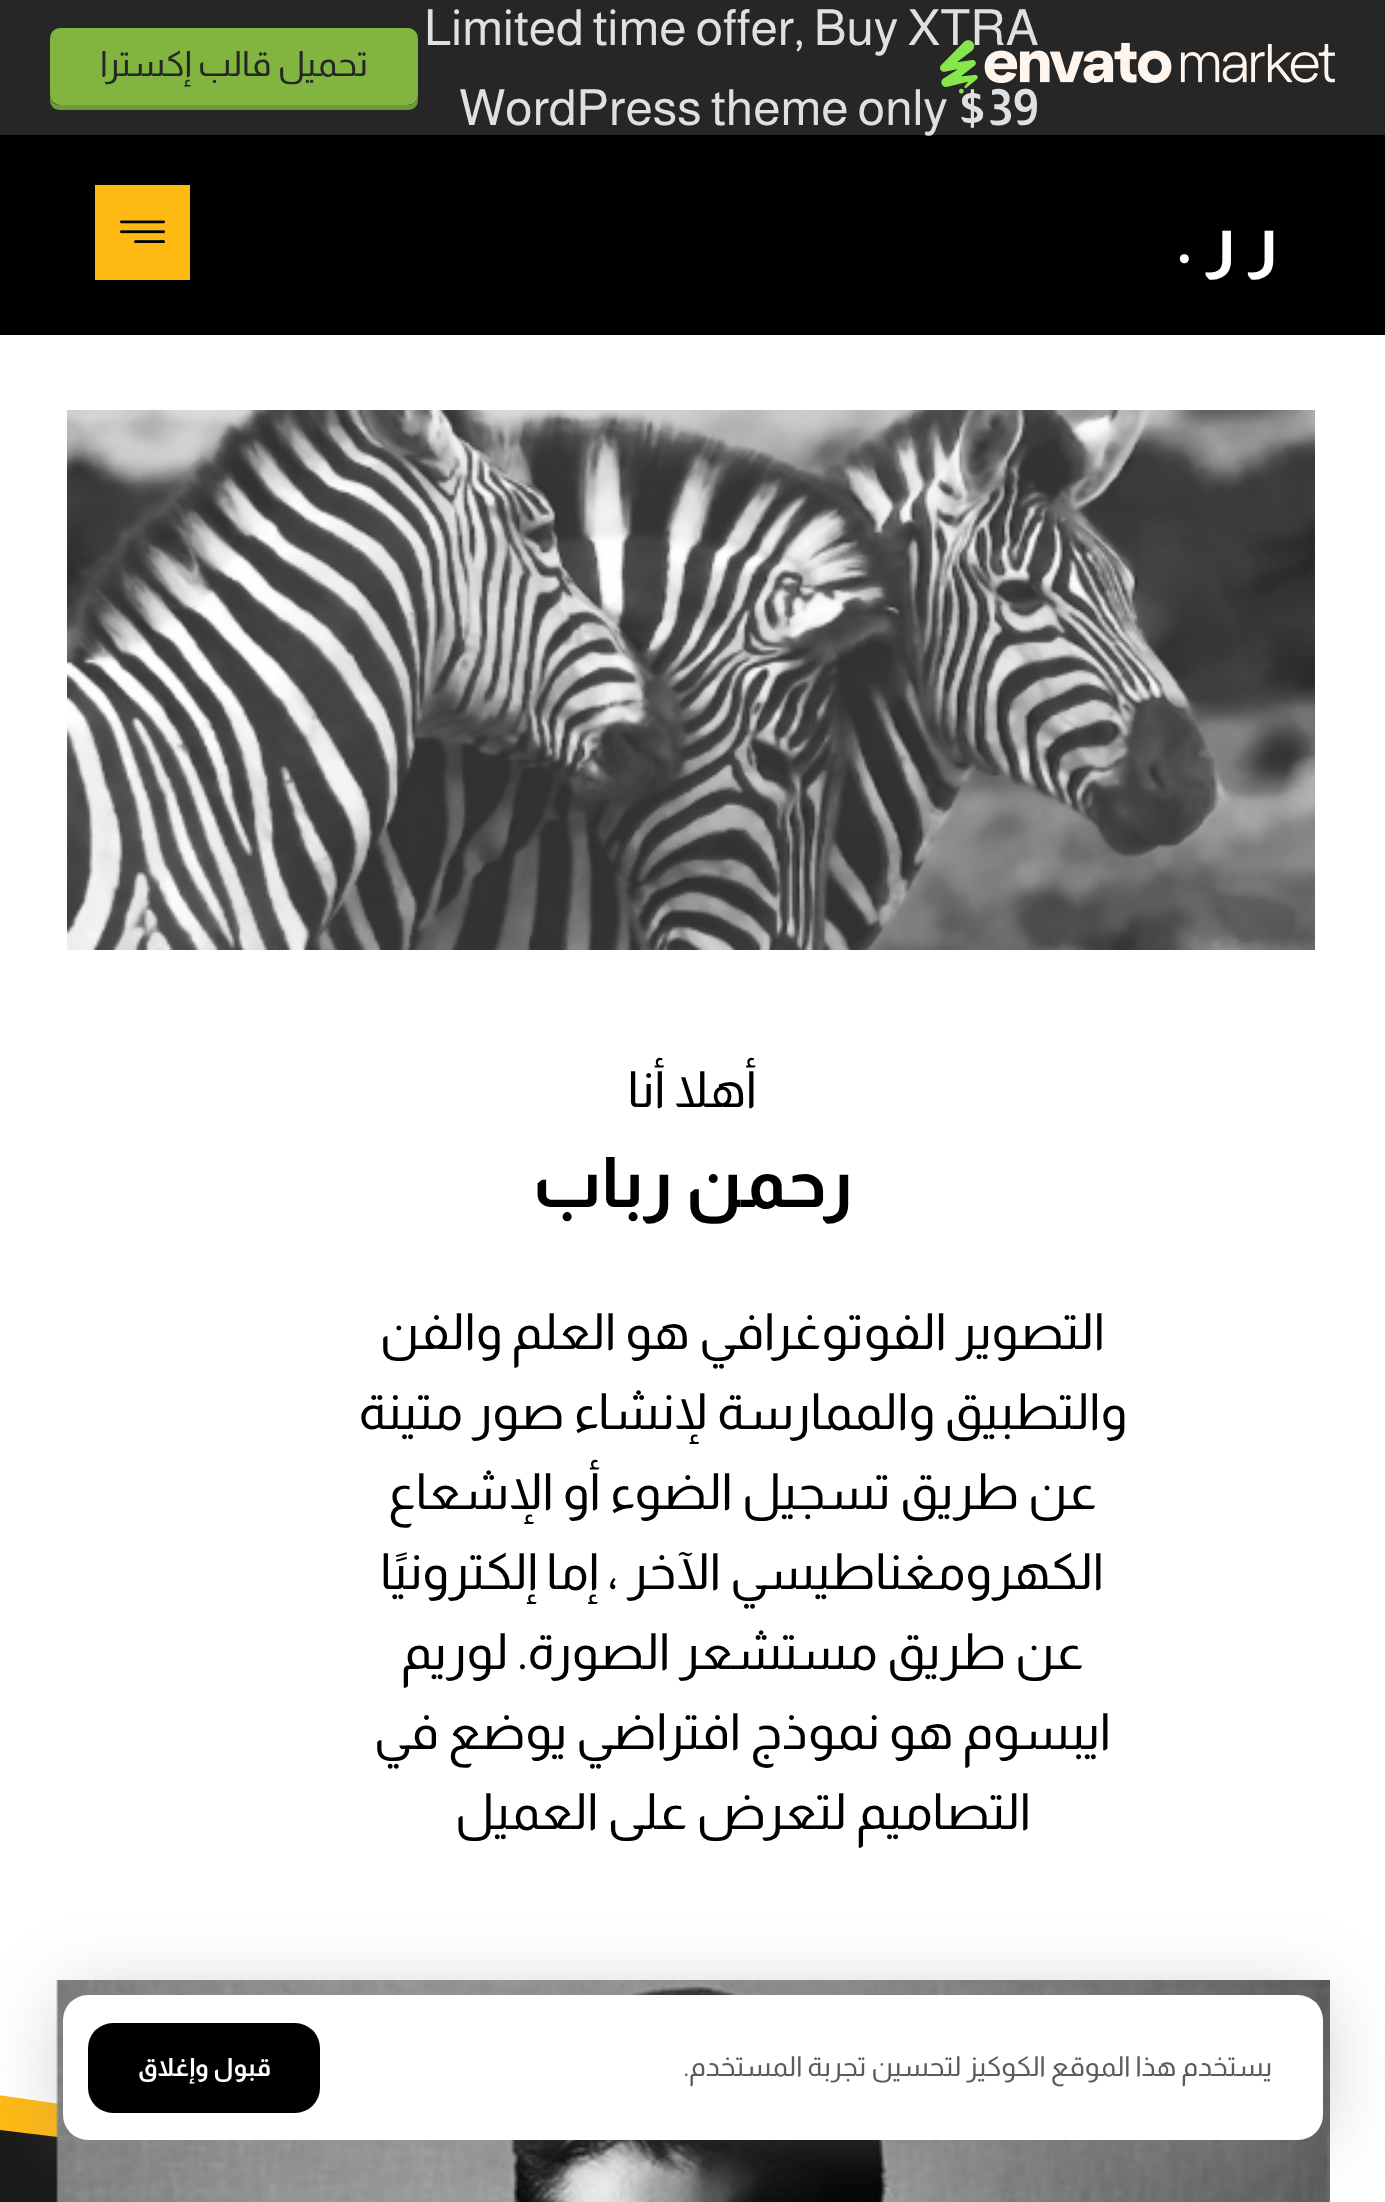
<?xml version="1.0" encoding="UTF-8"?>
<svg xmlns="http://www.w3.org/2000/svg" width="1385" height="2202">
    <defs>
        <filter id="blur1" x="-50%" y="-200%" width="200%" height="500%"><feGaussianBlur stdDeviation="37.5"/></filter>
    </defs>
    <rect width="100%" height="100%" fill="#FFFFFF"/>
    <rect x="0" y="0" width="1385" height="135" fill="#262626"/>
    <image x="940" y="40" width="395" height="54" href="img_01.png"/>
    <text x="424" y="45" font-family="Almarai" font-size="50" fill="#E0E0E0">Limited time offer, Buy XTRA</text>
    <text x="957" y="125" font-family="Almarai" font-size="50" font-weight="700" fill="#E0E0E0">$39</text>
    <rect x="0" y="135" width="1385" height="200" fill="#000000"/>
    <text x="459" y="125" font-family="Almarai" font-size="50" fill="#E0E0E0">WordPress theme only</text>
    <path d="M 50 95 V 100 C 50 106 54 110 60 110 H 408 C 414 110 418 106 418 100 V 43 V 40 V 95 C 418 101 413 105 408 105 H 60 C 54 105 50 101 50 95 Z" fill="#6F9A37"/>
    <rect x="50" y="28" width="368" height="77" rx="10" fill="#82B440"/>
    <text x="368" y="76" font-family="Almarai" font-size="35" direction="rtl" fill="#262626">تحميل قالب إكسترا</text>
    <text x="1278" y="263" font-family="Almarai" font-size="70" font-weight="700" direction="rtl" fill="#FFFFFF">ر ر .</text>
    <rect x="95" y="185" width="95" height="95" fill="#FEB912"/>
    <image x="120" y="220" width="45" height="23" href="img_02.png"/>
    <image x="67" y="410" width="1248" height="540" href="img_03.png"/>
    <text x="757" y="1107" font-family="Almarai" font-size="50" direction="rtl" fill="#000000">أهلا أنا</text>
    <text x="853" y="1207" font-family="Almarai" font-size="70" font-weight="700" direction="rtl" fill="#000000">رحمن رباب</text>
    <text x="1105" y="1349" font-family="Almarai" font-size="50" direction="rtl" fill="#000000">التصوير الفوتوغرافي هو العلم والفن</text>
    <text x="1127" y="1429" font-family="Almarai" font-size="50" direction="rtl" fill="#000000">والتطبيق والممارسة لإنشاء صور متينة</text>
    <text x="1097" y="1509" font-family="Almarai" font-size="50" direction="rtl" fill="#000000">عن طريق تسجيل الضوء أو الإشعاع</text>
    <text x="1104" y="1589" font-family="Almarai" font-size="50" direction="rtl" fill="#000000">الكهرومغناطيسي الآخر ، إما إلكترونيًا</text>
    <text x="1084" y="1669" font-family="Almarai" font-size="50" direction="rtl" fill="#000000">عن طريق مستشعر الصورة. لوريم</text>
    <text x="1111" y="1749" font-family="Almarai" font-size="50" direction="rtl" fill="#000000">ايبسوم هو نموذج افتراضي يوضع في</text>
    <text x="1031" y="1829" font-family="Almarai" font-size="50" direction="rtl" fill="#000000">التصاميم لتعرض على العميل</text>
    <path d="M 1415 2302 L -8 2094 V 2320 H 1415 Z" fill="#FEB912"/>
    <path d="M 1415 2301 L -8 2129 V 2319 H 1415 Z" fill="#191919"/>
    <image x="56" y="1980" width="1274" height="222" href="img_04.png"/>
    <rect x="63" y="1995" width="1260" height="145" rx="25" fill="#8A8A8A" fill-opacity="0.44" filter="url(#blur1)"/>
    <rect x="63" y="1995" width="1260" height="145" rx="25" fill="#FFFFFF"/>
    <text x="1272" y="2076" font-family="Almarai" font-size="27.5" direction="rtl" fill="#5B5B5B">يستخدم هذا الموقع الكوكيز لتحسين تجربة المستخدم.</text>
    <rect x="88" y="2023" width="232" height="90" rx="25" fill="#000000"/>
    <text x="271" y="2076" font-family="Almarai" font-size="25" font-weight="700" direction="rtl" fill="#FFFFFF">قبول وإغلاق</text>
</svg>
